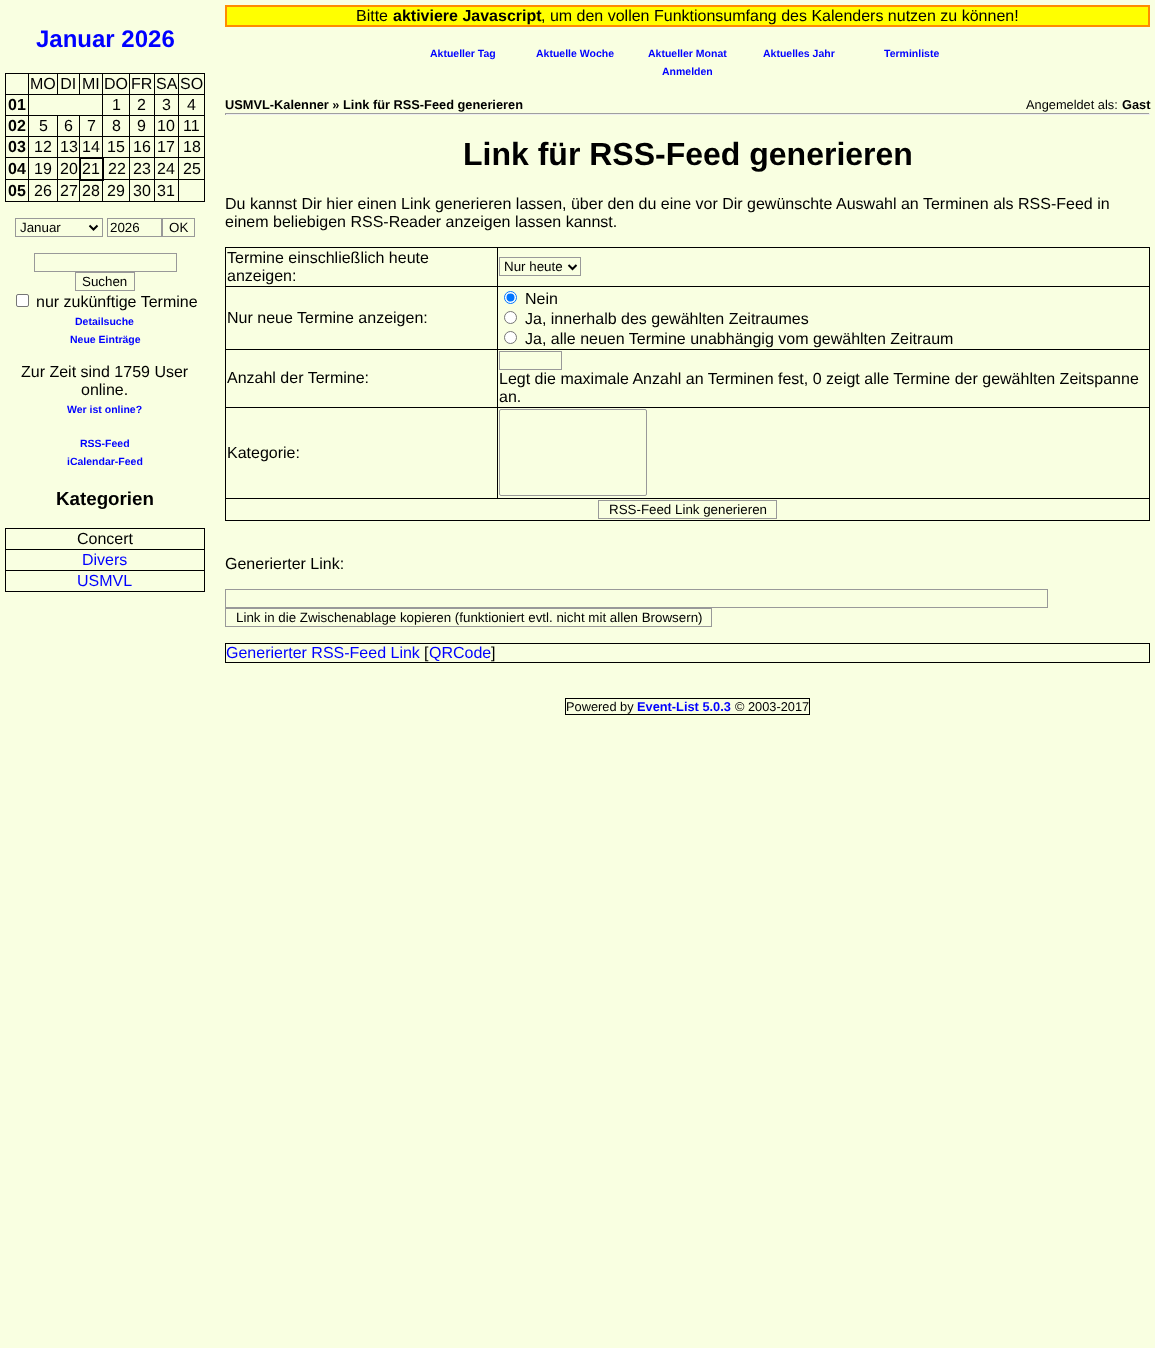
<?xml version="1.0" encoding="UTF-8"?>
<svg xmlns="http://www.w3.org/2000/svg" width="1155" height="1348">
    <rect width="100%" height="100%" fill="#F9FFE1"/>
    <text x="36" y="47" font-family="Liberation Sans" font-size="24" font-weight="700" fill="#0000FF">Januar 2026</text>
    <rect x="5" y="73" width="200" height="1" fill="#000000"/>
    <rect x="204" y="73" width="1" height="129" fill="#000000"/>
    <rect x="5" y="201" width="200" height="1" fill="#000000"/>
    <rect x="5" y="73" width="1" height="129" fill="#000000"/>
    <rect x="178" y="94" width="27" height="1" fill="#000000"/>
    <rect x="178" y="115" width="27" height="1" fill="#000000"/>
    <rect x="178" y="136" width="27" height="1" fill="#000000"/>
    <rect x="178" y="157" width="27" height="1" fill="#000000"/>
    <rect x="178" y="179" width="27" height="1" fill="#000000"/>
    <rect x="178" y="179" width="1" height="23" fill="#000000"/>
    <rect x="154" y="179" width="25" height="1" fill="#000000"/>
    <rect x="178" y="157" width="1" height="23" fill="#000000"/>
    <rect x="154" y="157" width="25" height="1" fill="#000000"/>
    <rect x="178" y="136" width="1" height="22" fill="#000000"/>
    <rect x="154" y="136" width="25" height="1" fill="#000000"/>
    <rect x="178" y="115" width="1" height="22" fill="#000000"/>
    <rect x="154" y="115" width="25" height="1" fill="#000000"/>
    <rect x="178" y="94" width="1" height="22" fill="#000000"/>
    <rect x="154" y="94" width="25" height="1" fill="#000000"/>
    <rect x="154" y="179" width="1" height="23" fill="#000000"/>
    <rect x="129" y="179" width="26" height="1" fill="#000000"/>
    <rect x="154" y="157" width="1" height="23" fill="#000000"/>
    <rect x="129" y="157" width="26" height="1" fill="#000000"/>
    <rect x="154" y="136" width="1" height="22" fill="#000000"/>
    <rect x="129" y="136" width="26" height="1" fill="#000000"/>
    <rect x="154" y="115" width="1" height="22" fill="#000000"/>
    <rect x="129" y="115" width="26" height="1" fill="#000000"/>
    <rect x="154" y="94" width="1" height="22" fill="#000000"/>
    <rect x="129" y="94" width="26" height="1" fill="#000000"/>
    <rect x="129" y="179" width="1" height="23" fill="#000000"/>
    <rect x="102" y="179" width="28" height="1" fill="#000000"/>
    <rect x="129" y="157" width="1" height="23" fill="#000000"/>
    <rect x="102" y="157" width="28" height="1" fill="#000000"/>
    <rect x="129" y="136" width="1" height="22" fill="#000000"/>
    <rect x="102" y="136" width="28" height="1" fill="#000000"/>
    <rect x="129" y="115" width="1" height="22" fill="#000000"/>
    <rect x="102" y="115" width="28" height="1" fill="#000000"/>
    <rect x="129" y="94" width="1" height="22" fill="#000000"/>
    <rect x="102" y="94" width="28" height="1" fill="#000000"/>
    <rect x="102" y="136" width="1" height="22" fill="#000000"/>
    <rect x="79" y="136" width="24" height="1" fill="#000000"/>
    <rect x="102" y="115" width="1" height="22" fill="#000000"/>
    <rect x="79" y="115" width="24" height="1" fill="#000000"/>
    <rect x="102" y="94" width="1" height="22" fill="#000000"/>
    <rect x="28" y="94" width="75" height="1" fill="#000000"/>
    <rect x="57" y="73" width="1" height="22" fill="#000000"/>
    <rect x="57" y="157" width="23" height="1" fill="#000000"/>
    <rect x="79" y="136" width="1" height="22" fill="#000000"/>
    <rect x="57" y="136" width="23" height="1" fill="#000000"/>
    <rect x="79" y="115" width="1" height="22" fill="#000000"/>
    <rect x="57" y="115" width="23" height="1" fill="#000000"/>
    <rect x="79" y="179" width="1" height="23" fill="#000000"/>
    <rect x="57" y="179" width="23" height="1" fill="#000000"/>
    <rect x="57" y="179" width="1" height="23" fill="#000000"/>
    <rect x="28" y="179" width="30" height="1" fill="#000000"/>
    <rect x="57" y="157" width="1" height="23" fill="#000000"/>
    <rect x="28" y="157" width="30" height="1" fill="#000000"/>
    <rect x="57" y="136" width="1" height="22" fill="#000000"/>
    <rect x="28" y="136" width="30" height="1" fill="#000000"/>
    <rect x="57" y="115" width="1" height="22" fill="#000000"/>
    <rect x="28" y="115" width="30" height="1" fill="#000000"/>
    <rect x="28" y="179" width="1" height="23" fill="#000000"/>
    <rect x="5" y="179" width="24" height="1" fill="#000000"/>
    <rect x="28" y="157" width="1" height="23" fill="#000000"/>
    <rect x="5" y="157" width="24" height="1" fill="#000000"/>
    <rect x="28" y="136" width="1" height="22" fill="#000000"/>
    <rect x="5" y="136" width="24" height="1" fill="#000000"/>
    <rect x="28" y="115" width="1" height="22" fill="#000000"/>
    <rect x="5" y="115" width="24" height="1" fill="#000000"/>
    <rect x="28" y="94" width="1" height="22" fill="#000000"/>
    <rect x="5" y="94" width="24" height="1" fill="#000000"/>
    <rect x="28" y="73" width="1" height="22" fill="#000000"/>
    <text x="30" y="89" font-family="Liberation Sans" font-size="16" fill="#000000">MO DI</text>
    <rect x="79" y="73" width="1" height="22" fill="#000000"/>
    <text x="82" y="89" font-family="Liberation Sans" font-size="16" fill="#000000">MI</text>
    <rect x="102" y="73" width="1" height="22" fill="#000000"/>
    <text x="104" y="89" font-family="Liberation Sans" font-size="16" fill="#000000">DO</text>
    <rect x="129" y="73" width="1" height="22" fill="#000000"/>
    <text x="131" y="89" font-family="Liberation Sans" font-size="16" fill="#000000">FR</text>
    <rect x="154" y="73" width="1" height="22" fill="#000000"/>
    <text x="156" y="89" font-family="Liberation Sans" font-size="16" fill="#000000">SA</text>
    <rect x="178" y="73" width="1" height="22" fill="#000000"/>
    <text x="180" y="89" font-family="Liberation Sans" font-size="16" fill="#000000">SO</text>
    <text x="8" y="110" font-family="Liberation Sans" font-size="16" font-weight="700" fill="#000000">01</text>
    <text x="112" y="110" font-family="Liberation Sans" font-size="16" fill="#000000">1</text>
    <text x="137" y="110" font-family="Liberation Sans" font-size="16" fill="#000000">2</text>
    <text x="162" y="110" font-family="Liberation Sans" font-size="16" fill="#000000">3</text>
    <text x="187" y="110" font-family="Liberation Sans" font-size="16" fill="#000000">4</text>
    <text x="8" y="131" font-family="Liberation Sans" font-size="16" font-weight="700" fill="#000000">02</text>
    <text x="39" y="131" font-family="Liberation Sans" font-size="16" fill="#000000">5</text>
    <text x="64" y="131" font-family="Liberation Sans" font-size="16" fill="#000000">6</text>
    <text x="87" y="131" font-family="Liberation Sans" font-size="16" fill="#000000">7</text>
    <text x="112" y="131" font-family="Liberation Sans" font-size="16" fill="#000000">8</text>
    <text x="137" y="131" font-family="Liberation Sans" font-size="16" fill="#000000">9</text>
    <text x="157" y="131" font-family="Liberation Sans" font-size="16" fill="#000000">10</text>
    <text x="183" y="131" font-family="Liberation Sans" font-size="16" fill="#000000">11</text>
    <text x="8" y="152" font-family="Liberation Sans" font-size="16" font-weight="700" fill="#000000">03</text>
    <text x="34" y="152" font-family="Liberation Sans" font-size="16" fill="#000000">12</text>
    <text x="60" y="152" font-family="Liberation Sans" font-size="16" fill="#000000">13</text>
    <text x="82" y="152" font-family="Liberation Sans" font-size="16" fill="#000000">14</text>
    <text x="107" y="152" font-family="Liberation Sans" font-size="16" fill="#000000">15</text>
    <text x="133" y="152" font-family="Liberation Sans" font-size="16" fill="#000000">16</text>
    <text x="157" y="152" font-family="Liberation Sans" font-size="16" fill="#000000">17</text>
    <text x="183" y="152" font-family="Liberation Sans" font-size="16" fill="#000000">18</text>
    <text x="8" y="174" font-family="Liberation Sans" font-size="16" font-weight="700" fill="#000000">04</text>
    <text x="34" y="174" font-family="Liberation Sans" font-size="16" fill="#000000">19</text>
    <text x="60" y="174" font-family="Liberation Sans" font-size="16" fill="#000000">20</text>
    <rect x="79" y="157" width="25" height="2" fill="#000000"/>
    <rect x="102" y="179" width="1" height="23" fill="#000000"/>
    <rect x="102" y="157" width="2" height="24" fill="#000000"/>
    <rect x="79" y="179" width="25" height="2" fill="#000000"/>
    <rect x="79" y="157" width="2" height="24" fill="#000000"/>
    <text x="82" y="174" font-family="Liberation Sans" font-size="16" fill="#000000">21</text>
    <text x="108" y="174" font-family="Liberation Sans" font-size="16" fill="#000000">22</text>
    <text x="133" y="174" font-family="Liberation Sans" font-size="16" fill="#000000">23</text>
    <text x="157" y="174" font-family="Liberation Sans" font-size="16" fill="#000000">24</text>
    <text x="183" y="174" font-family="Liberation Sans" font-size="16" fill="#000000">25</text>
    <text x="8" y="196" font-family="Liberation Sans" font-size="16" font-weight="700" fill="#000000">05</text>
    <text x="34" y="196" font-family="Liberation Sans" font-size="16" fill="#000000">26</text>
    <text x="60" y="196" font-family="Liberation Sans" font-size="16" fill="#000000">27</text>
    <text x="82" y="196" font-family="Liberation Sans" font-size="16" fill="#000000">28</text>
    <text x="107" y="196" font-family="Liberation Sans" font-size="16" fill="#000000">29</text>
    <text x="133" y="196" font-family="Liberation Sans" font-size="16" fill="#000000">30</text>
    <text x="157" y="196" font-family="Liberation Sans" font-size="16" fill="#000000">31</text>
    <rect x="15.5" y="218.5" width="87" height="18" fill="none" stroke="#999999"/>
    <path d="M 89.5 225.5 L 93.5 229.5 L 97.5 225.5" fill="none" stroke="#000000" stroke-width="2"/>
    <text x="20" y="232" font-family="Liberation Sans" font-size="13.35" fill="#000000">Januar</text>
    <rect x="107.5" y="218.5" width="54" height="18" fill="none" stroke="#999999"/>
    <text x="110" y="232" font-family="Liberation Sans" font-size="13.35" fill="#000000">2026</text>
    <rect x="162.5" y="218.5" width="32" height="18" fill="none" stroke="#999999"/>
    <text x="169" y="232" font-family="Liberation Sans" font-size="13.35" fill="#000000">OK</text>
    <rect x="34.5" y="253.5" width="142" height="18" fill="none" stroke="#999999"/>
    <rect x="75.5" y="272.5" width="59" height="18" fill="none" stroke="#999999"/>
    <text x="82" y="286" font-family="Liberation Sans" font-size="13.35" fill="#000000">Suchen</text>
    <rect x="16.5" y="294.5" width="12" height="12" rx="1.5" fill="#FFFFFF" stroke="#767676"/>
    <text x="36" y="307" font-family="Liberation Sans" font-size="16" fill="#000000">nur zukünftige Termine</text>
    <text x="75" y="325" font-family="Liberation Sans" font-size="10.5" font-weight="700" fill="#0000FF">Detailsuche</text>
    <text x="70" y="343" font-family="Liberation Sans" font-size="10.5" font-weight="700" fill="#0000FF">Neue Einträge</text>
    <text x="21" y="377" font-family="Liberation Sans" font-size="16" fill="#000000">Zur Zeit sind 1759 User</text>
    <text x="81" y="395" font-family="Liberation Sans" font-size="16" fill="#000000">online.</text>
    <text x="67" y="413" font-family="Liberation Sans" font-size="10.5" font-weight="700" fill="#0000FF">Wer ist online?</text>
    <text x="80" y="447" font-family="Liberation Sans" font-size="10.5" font-weight="700" fill="#0000FF">RSS-Feed</text>
    <text x="67" y="465" font-family="Liberation Sans" font-size="10.5" font-weight="700" fill="#0000FF">iCalendar-Feed</text>
    <text x="56" y="505" font-family="Liberation Sans" font-size="18.75" font-weight="700" fill="#000000">Kategorien</text>
    <rect x="5" y="528" width="200" height="1" fill="#000000"/>
    <rect x="204" y="528" width="1" height="64" fill="#000000"/>
    <rect x="5" y="591" width="200" height="1" fill="#000000"/>
    <rect x="5" y="528" width="1" height="64" fill="#000000"/>
    <text x="77" y="544" font-family="Liberation Sans" font-size="16" fill="#000000">Concert</text>
    <rect x="5" y="549" width="200" height="1" fill="#000000"/>
    <text x="82" y="565" font-family="Liberation Sans" font-size="16" fill="#0000FF">Divers</text>
    <rect x="5" y="570" width="200" height="1" fill="#000000"/>
    <text x="77" y="586" font-family="Liberation Sans" font-size="16" fill="#0000FF">USMVL</text>
    <rect x="226" y="6" width="923" height="20" fill="#FFFF00" stroke="#FF8C00" stroke-width="2"/>
    <text x="356" y="21" font-family="Liberation Sans" font-size="16" fill="#000000">Bitte</text>
    <text x="393" y="21" font-family="Liberation Sans" font-size="16" font-weight="700" fill="#000000">aktiviere Javascript</text>
    <text x="541" y="21" font-family="Liberation Sans" font-size="16" fill="#000000">, um den vollen Funktionsumfang des Kalenders nutzen zu können!</text>
    <text x="430" y="57" font-family="Liberation Sans" font-size="10.5" font-weight="700" fill="#0000FF">Aktueller Tag</text>
    <text x="536" y="57" font-family="Liberation Sans" font-size="10.5" font-weight="700" fill="#0000FF">Aktuelle Woche</text>
    <text x="648" y="57" font-family="Liberation Sans" font-size="10.5" font-weight="700" fill="#0000FF">Aktueller Monat</text>
    <text x="763" y="57" font-family="Liberation Sans" font-size="10.5" font-weight="700" fill="#0000FF">Aktuelles Jahr</text>
    <text x="884" y="57" font-family="Liberation Sans" font-size="10.5" font-weight="700" fill="#0000FF">Terminliste</text>
    <text x="662" y="75" font-family="Liberation Sans" font-size="10.5" font-weight="700" fill="#0000FF">Anmelden</text>
    <text x="225" y="109" font-family="Liberation Sans" font-size="12.8" font-weight="700" fill="#000000">USMVL-Kalenner » Link für RSS-Feed generieren</text>
    <text x="1026" y="109" font-family="Liberation Sans" font-size="12.8" fill="#000000">Angemeldet als:</text>
    <text x="1122" y="109" font-family="Liberation Sans" font-size="12.8" font-weight="700" fill="#000000">Gast</text>
    <rect x="225" y="113" width="925" height="1" fill="#9F9F9F"/>
    <rect x="1149" y="113" width="1" height="2" fill="#EEEEEE"/>
    <rect x="225" y="114" width="925" height="1" fill="#EEEEEE"/>
    <rect x="225" y="113" width="1" height="2" fill="#9F9F9F"/>
    <text x="463" y="165" font-family="Liberation Sans" font-size="32" font-weight="700" fill="#000000">Link für RSS-Feed generieren</text>
    <text font-family="Liberation Sans" font-size="16" fill="#000000">
        <tspan x="225" y="209">Du kannst Dir hier einen Link generieren lassen, über den du eine vor Dir gewünschte Auswahl an Terminen als RSS-Feed in</tspan>
        <tspan x="225" y="227">einem beliebigen RSS-Reader anzeigen lassen kannst.</tspan>
    </text>
    <rect x="225" y="247" width="925" height="1" fill="#000000"/>
    <rect x="1149" y="247" width="1" height="274" fill="#000000"/>
    <rect x="225" y="520" width="925" height="1" fill="#000000"/>
    <rect x="225" y="247" width="1" height="274" fill="#000000"/>
    <text font-family="Liberation Sans" font-size="16" fill="#000000">
        <tspan x="227" y="263">Termine einschließlich heute</tspan>
        <tspan x="227" y="281">anzeigen:</tspan>
    </text>
    <rect x="497" y="286" width="653" height="1" fill="#000000"/>
    <rect x="497" y="349" width="653" height="1" fill="#000000"/>
    <rect x="497" y="407" width="653" height="1" fill="#000000"/>
    <rect x="225" y="498" width="925" height="1" fill="#000000"/>
    <rect x="497" y="407" width="1" height="92" fill="#000000"/>
    <rect x="225" y="407" width="273" height="1" fill="#000000"/>
    <rect x="497" y="349" width="1" height="59" fill="#000000"/>
    <rect x="225" y="349" width="273" height="1" fill="#000000"/>
    <rect x="497" y="286" width="1" height="64" fill="#000000"/>
    <rect x="225" y="286" width="273" height="1" fill="#000000"/>
    <rect x="497" y="247" width="1" height="40" fill="#000000"/>
    <rect x="499.5" y="257.5" width="81" height="18" fill="none" stroke="#999999"/>
    <path d="M 568.5 265 L 572.5 269 L 576.5 265" fill="none" stroke="#000000" stroke-width="2"/>
    <text x="504" y="271" font-family="Liberation Sans" font-size="13.35" fill="#000000">Nur heute</text>
    <text x="227" y="323" font-family="Liberation Sans" font-size="16" fill="#000000">Nur neue Termine anzeigen:</text>
    <circle cx="510.5" cy="297.5" r="6" fill="#FFFFFF" stroke="#0075FF"/>
    <circle cx="510.5" cy="297.5" r="4" fill="#0075FF"/>
    <text x="525" y="304" font-family="Liberation Sans" font-size="16" fill="#000000">Nein</text>
    <circle cx="510.5" cy="317.5" r="6" fill="#FFFFFF" stroke="#767676"/>
    <text x="525" y="324" font-family="Liberation Sans" font-size="16" fill="#000000">Ja, innerhalb des gewählten Zeitraumes</text>
    <circle cx="510.5" cy="337.5" r="6" fill="#FFFFFF" stroke="#767676"/>
    <text x="525" y="344" font-family="Liberation Sans" font-size="16" fill="#000000">Ja, alle neuen Termine unabhängig vom gewählten Zeitraum</text>
    <text x="227" y="383" font-family="Liberation Sans" font-size="16" fill="#000000">Anzahl der Termine:</text>
    <rect x="499.5" y="351.5" width="62" height="18" fill="none" stroke="#999999"/>
    <text font-family="Liberation Sans" font-size="16" fill="#000000">
        <tspan x="499" y="384">Legt die maximale Anzahl an Terminen fest, 0 zeigt alle Termine der gewählten Zeitspanne</tspan>
        <tspan x="499" y="402">an.</tspan>
    </text>
    <text x="227" y="458" font-family="Liberation Sans" font-size="16" fill="#000000">Kategorie:</text>
    <rect x="499.5" y="409.5" width="147" height="86" rx="1.5" fill="none" stroke="#999999"/>
    <rect x="598.5" y="500.5" width="178" height="18" fill="none" stroke="#999999"/>
    <text x="609" y="514" font-family="Liberation Sans" font-size="13.35" fill="#000000">RSS-Feed Link generieren</text>
    <text x="225" y="569" font-family="Liberation Sans" font-size="16" fill="#000000">Generierter Link:</text>
    <rect x="225.5" y="589.5" width="822" height="18" fill="none" stroke="#999999"/>
    <rect x="225.5" y="608.5" width="486" height="18" fill="none" stroke="#999999"/>
    <text x="236" y="622" font-family="Liberation Sans" font-size="13.35" fill="#000000">Link in die Zwischenablage kopieren (funktioniert evtl. nicht mit allen Browsern)</text>
    <rect x="225.5" y="643.5" width="924" height="19" fill="none" stroke="#000000"/>
    <text x="226" y="658" font-family="Liberation Sans" font-size="16" fill="#0000FF">Generierter RSS-Feed Link</text>
    <text x="424" y="658" font-family="Liberation Sans" font-size="16" fill="#000000">[</text>
    <text x="429" y="658" font-family="Liberation Sans" font-size="16" fill="#0000FF">QRCode</text>
    <text x="491" y="658" font-family="Liberation Sans" font-size="16" fill="#000000">]</text>
    <text x="566" y="711" font-family="Liberation Sans" font-size="12.8" fill="#000000">Powered by</text>
    <rect x="565" y="714" width="166" height="1" fill="#000000"/>
    <rect x="565" y="698" width="245" height="1" fill="#000000"/>
    <rect x="565" y="698" width="1" height="17" fill="#000000"/>
    <text x="637" y="711" font-family="Liberation Sans" font-size="12.8" font-weight="700" fill="#0000FF">Event-List 5.0.3</text>
    <text x="735" y="711" font-family="Liberation Sans" font-size="12.8" fill="#000000">© 2003-2017</text>
    <rect x="809" y="698" width="1" height="17" fill="#000000"/>
    <rect x="731" y="714" width="79" height="1" fill="#000000"/>
</svg>
